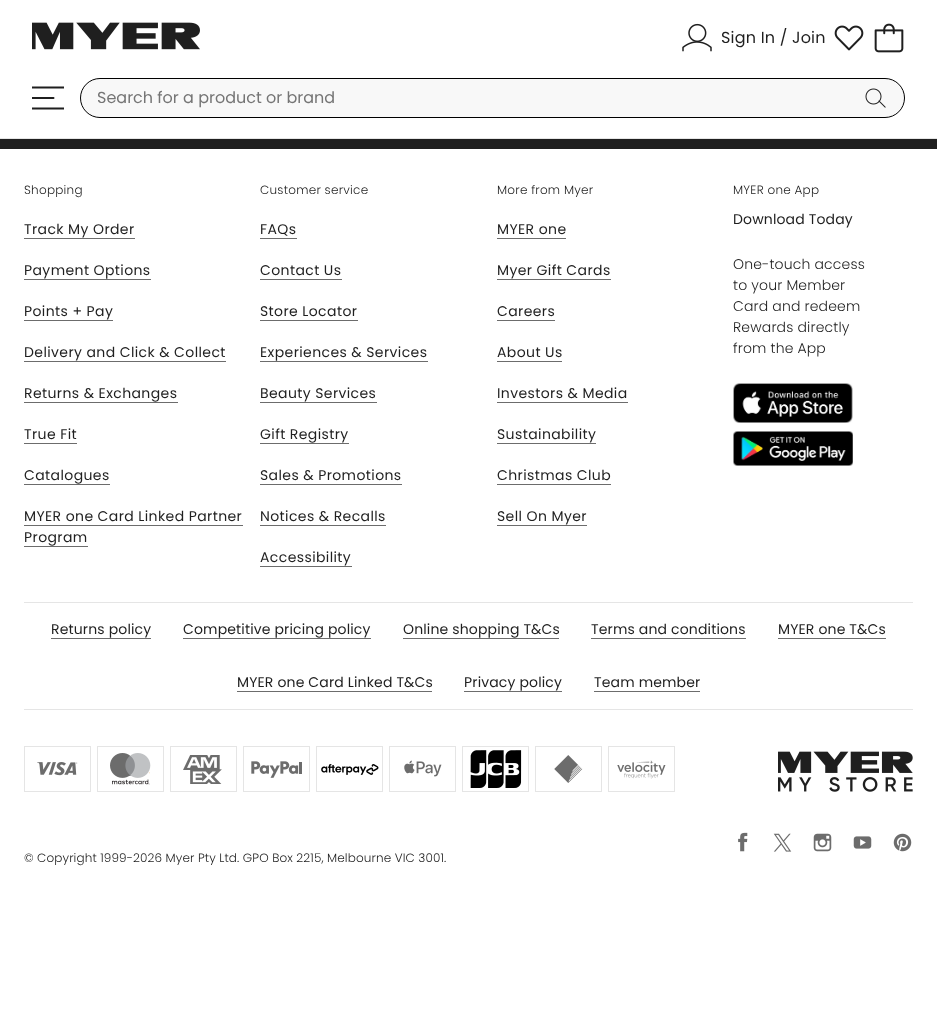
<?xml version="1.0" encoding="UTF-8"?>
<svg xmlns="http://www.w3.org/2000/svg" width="937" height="1014">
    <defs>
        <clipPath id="clip1"><rect x="32" y="82" width="32" height="32"/></clipPath>
    </defs>
    <rect width="100%" height="100%" fill="#FFFFFF"/>
    <rect x="0" y="138" width="937" height="1" fill="#E5E5E5"/>
    <image x="32" y="22" width="168" height="28" href="img_01.png"/>
    <image x="682" y="23" width="30" height="29" href="img_02.png"/>
    <text x="721" y="43" font-family="Poppins" font-size="16" letter-spacing="0.2" fill="#1F1F1F">Sign In / Join</text>
    <image x="834" y="25" width="30" height="26" href="img_03.png"/>
    <image x="874" y="23" width="30" height="30" href="img_04.png"/>
    <g clip-path="url(#clip1)">
        <path d="M 32 108.5 H 64 M 32 98 H 53.5 M 32 87.5 H 64" fill="none" stroke="#1F1F1F" stroke-width="2" stroke-linecap="round" stroke-linejoin="round"/>
    </g>
    <rect x="80.5" y="78.5" width="824" height="39" rx="19.5" fill="#F8F8F8" stroke="#000000"/>
    <text x="97" y="103" font-family="Poppins" font-size="16" fill="#757575">Search for a product or brand</text>
    <image x="865" y="88" width="21" height="20" href="img_05.png"/>
    <rect x="0" y="139" width="937" height="10" fill="#1F1F1F"/>
    <text x="24" y="194" font-family="Poppins" font-size="12" font-weight="300" letter-spacing="0.25" fill="#1F1F1F">Shopping</text>
    <text x="24" y="234" font-family="Poppins" font-size="14" letter-spacing="0.4" fill="#1F1F1F">Track My Order</text>
    <rect x="24" y="238" width="111" height="1" fill="#6C6C6C"/>
    <text x="24" y="275" font-family="Poppins" font-size="14" letter-spacing="0.4" fill="#1F1F1F">Payment Options</text>
    <rect x="24" y="279" width="127" height="1" fill="#6C6C6C"/>
    <text x="24" y="316" font-family="Poppins" font-size="14" letter-spacing="0.4" fill="#1F1F1F">Points + Pay</text>
    <rect x="24" y="320" width="89" height="1" fill="#6C6C6C"/>
    <text x="24" y="357" font-family="Poppins" font-size="14" letter-spacing="0.4" fill="#1F1F1F">Delivery and Click &amp; Collect</text>
    <rect x="24" y="361" width="202" height="1" fill="#6C6C6C"/>
    <text x="24" y="398" font-family="Poppins" font-size="14" letter-spacing="0.4" fill="#1F1F1F">Returns &amp; Exchanges</text>
    <rect x="24" y="402" width="154" height="1" fill="#6C6C6C"/>
    <text x="24" y="439" font-family="Poppins" font-size="14" letter-spacing="0.4" fill="#1F1F1F">True Fit</text>
    <rect x="24" y="443" width="53" height="1" fill="#6C6C6C"/>
    <text x="24" y="480" font-family="Poppins" font-size="14" letter-spacing="0.4" fill="#1F1F1F">Catalogues</text>
    <rect x="24" y="484" width="86" height="1" fill="#6C6C6C"/>
    <text x="24" y="521" font-family="Poppins" font-size="14" letter-spacing="0.4" fill="#1F1F1F">MYER one Card Linked Partner</text>
    <rect x="24" y="525" width="219" height="1" fill="#6C6C6C"/>
    <text x="24" y="542" font-family="Poppins" font-size="14" letter-spacing="0.4" fill="#1F1F1F">Program</text>
    <rect x="24" y="546" width="64" height="1" fill="#6C6C6C"/>
    <text x="260" y="194" font-family="Poppins" font-size="12" font-weight="300" letter-spacing="0.25" fill="#1F1F1F">Customer service</text>
    <text x="260" y="234" font-family="Poppins" font-size="14" letter-spacing="0.4" fill="#1F1F1F">FAQs</text>
    <rect x="260" y="238" width="37" height="1" fill="#6C6C6C"/>
    <text x="260" y="275" font-family="Poppins" font-size="14" letter-spacing="0.4" fill="#1F1F1F">Contact Us</text>
    <rect x="260" y="279" width="82" height="1" fill="#6C6C6C"/>
    <text x="260" y="316" font-family="Poppins" font-size="14" letter-spacing="0.4" fill="#1F1F1F">Store Locator</text>
    <rect x="260" y="320" width="98" height="1" fill="#6C6C6C"/>
    <text x="260" y="357" font-family="Poppins" font-size="14" letter-spacing="0.4" fill="#1F1F1F">Experiences &amp; Services</text>
    <rect x="260" y="361" width="168" height="1" fill="#6C6C6C"/>
    <text x="260" y="398" font-family="Poppins" font-size="14" letter-spacing="0.4" fill="#1F1F1F">Beauty Services</text>
    <rect x="260" y="402" width="117" height="1" fill="#6C6C6C"/>
    <text x="260" y="439" font-family="Poppins" font-size="14" letter-spacing="0.4" fill="#1F1F1F">Gift Registry</text>
    <rect x="260" y="443" width="89" height="1" fill="#6C6C6C"/>
    <text x="260" y="480" font-family="Poppins" font-size="14" letter-spacing="0.4" fill="#1F1F1F">Sales &amp; Promotions</text>
    <rect x="260" y="484" width="142" height="1" fill="#6C6C6C"/>
    <text x="260" y="521" font-family="Poppins" font-size="14" letter-spacing="0.4" fill="#1F1F1F">Notices &amp; Recalls</text>
    <rect x="260" y="525" width="126" height="1" fill="#6C6C6C"/>
    <text x="260" y="562" font-family="Poppins" font-size="14" letter-spacing="0.4" fill="#1F1F1F">Accessibility</text>
    <rect x="260" y="566" width="92" height="1" fill="#6C6C6C"/>
    <text x="497" y="194" font-family="Poppins" font-size="12" font-weight="300" letter-spacing="0.25" fill="#1F1F1F">More from Myer</text>
    <text x="497" y="234" font-family="Poppins" font-size="14" letter-spacing="0.4" fill="#1F1F1F">MYER one</text>
    <rect x="497" y="238" width="69" height="1" fill="#6C6C6C"/>
    <text x="497" y="275" font-family="Poppins" font-size="14" letter-spacing="0.4" fill="#1F1F1F">Myer Gift Cards</text>
    <rect x="497" y="279" width="114" height="1" fill="#6C6C6C"/>
    <text x="497" y="316" font-family="Poppins" font-size="14" letter-spacing="0.4" fill="#1F1F1F">Careers</text>
    <rect x="497" y="320" width="58" height="1" fill="#6C6C6C"/>
    <text x="497" y="357" font-family="Poppins" font-size="14" letter-spacing="0.4" fill="#1F1F1F">About Us</text>
    <rect x="497" y="361" width="65" height="1" fill="#6C6C6C"/>
    <text x="497" y="398" font-family="Poppins" font-size="14" letter-spacing="0.4" fill="#1F1F1F">Investors &amp; Media</text>
    <rect x="497" y="402" width="131" height="1" fill="#6C6C6C"/>
    <text x="497" y="439" font-family="Poppins" font-size="14" letter-spacing="0.4" fill="#1F1F1F">Sustainability</text>
    <rect x="497" y="443" width="99" height="1" fill="#6C6C6C"/>
    <text x="497" y="480" font-family="Poppins" font-size="14" letter-spacing="0.4" fill="#1F1F1F">Christmas Club</text>
    <rect x="497" y="484" width="114" height="1" fill="#6C6C6C"/>
    <text x="497" y="521" font-family="Poppins" font-size="14" letter-spacing="0.4" fill="#1F1F1F">Sell On Myer</text>
    <rect x="497" y="525" width="90" height="1" fill="#6C6C6C"/>
    <text x="733" y="194" font-family="Poppins" font-size="12" font-weight="300" letter-spacing="0.25" fill="#1F1F1F">MYER one App</text>
    <text x="733" y="224" font-family="Poppins" font-size="14" letter-spacing="0.15" fill="#1F1F1F">Download Today</text>
    <text font-family="Poppins" font-size="14" font-weight="300" letter-spacing="0.15" fill="#1F1F1F">
        <tspan x="733" y="269">One-touch access</tspan>
        <tspan x="733" y="290">to your Member</tspan>
        <tspan x="733" y="311">Card and redeem</tspan>
        <tspan x="733" y="332">Rewards directly</tspan>
        <tspan x="733" y="353">from the App</tspan>
    </text>
    <image x="733" y="383" width="120" height="40" href="img_06.png"/>
    <image x="733" y="431" width="120" height="35" href="img_07.png"/>
    <rect x="24" y="602" width="889" height="1" fill="#E5E5E5"/>
    <rect x="24" y="709" width="889" height="1" fill="#E5E5E5"/>
    <text x="51" y="634" font-family="Poppins" font-size="14" letter-spacing="0.15" fill="#1F1F1F">Returns policy</text>
    <rect x="51" y="638" width="100" height="1" fill="#6C6C6C"/>
    <text x="183" y="634" font-family="Poppins" font-size="14" letter-spacing="0.15" fill="#1F1F1F">Competitive pricing policy</text>
    <rect x="183" y="638" width="188" height="1" fill="#6C6C6C"/>
    <text x="403" y="634" font-family="Poppins" font-size="14" letter-spacing="0.15" fill="#1F1F1F">Online shopping T&amp;Cs</text>
    <rect x="403" y="638" width="156" height="1" fill="#6C6C6C"/>
    <text x="591" y="634" font-family="Poppins" font-size="14" letter-spacing="0.15" fill="#1F1F1F">Terms and conditions</text>
    <rect x="591" y="638" width="155" height="1" fill="#6C6C6C"/>
    <text x="778" y="634" font-family="Poppins" font-size="14" letter-spacing="0.15" fill="#1F1F1F">MYER one T&amp;Cs</text>
    <rect x="778" y="638" width="108" height="1" fill="#6C6C6C"/>
    <text x="237" y="687" font-family="Poppins" font-size="14" letter-spacing="0.15" fill="#1F1F1F">MYER one Card Linked T&amp;Cs</text>
    <rect x="237" y="691" width="195" height="1" fill="#6C6C6C"/>
    <text x="464" y="687" font-family="Poppins" font-size="14" letter-spacing="0.15" fill="#1F1F1F">Privacy policy</text>
    <rect x="464" y="691" width="98" height="1" fill="#6C6C6C"/>
    <text x="594" y="687" font-family="Poppins" font-size="14" letter-spacing="0.15" fill="#1F1F1F">Team member</text>
    <rect x="594" y="691" width="106" height="1" fill="#6C6C6C"/>
    <rect x="24.5" y="746.5" width="66" height="45" fill="none" stroke="#E5E5E5"/>
    <image x="37" y="762" width="41" height="14" href="img_08.png"/>
    <rect x="97.5" y="746.5" width="66" height="45" fill="none" stroke="#E5E5E5"/>
    <image x="110" y="753" width="41" height="32" href="img_09.png"/>
    <rect x="170.5" y="746.5" width="66" height="45" fill="none" stroke="#E5E5E5"/>
    <image x="183" y="755" width="39" height="29" href="img_10.png"/>
    <rect x="243.5" y="746.5" width="66" height="45" fill="none" stroke="#E5E5E5"/>
    <image x="251" y="761" width="51" height="17" href="img_11.png"/>
    <rect x="316.5" y="746.5" width="66" height="45" fill="none" stroke="#E5E5E5"/>
    <image x="321" y="764" width="58" height="11" href="img_12.png"/>
    <rect x="389.5" y="746.5" width="66" height="45" fill="none" stroke="#E5E5E5"/>
    <image x="404" y="760" width="38" height="17" href="img_13.png"/>
    <rect x="462.5" y="746.5" width="66" height="45" fill="none" stroke="#E5E5E5"/>
    <image x="470" y="750" width="52" height="38" href="img_14.png"/>
    <rect x="535.5" y="746.5" width="66" height="45" fill="none" stroke="#E5E5E5"/>
    <image x="554" y="755" width="29" height="28" href="img_15.png"/>
    <rect x="608.5" y="746.5" width="66" height="45" fill="none" stroke="#E5E5E5"/>
    <image x="617" y="760" width="49" height="19" href="img_16.png"/>
    <image x="778" y="751" width="135" height="41" href="img_17.png"/>
    <image x="738" y="832" width="10" height="20" href="img_18.png"/>
    <image x="773" y="833" width="19" height="19" href="img_19.png"/>
    <image x="813" y="833" width="19" height="19" href="img_20.png"/>
    <image x="853" y="836" width="19" height="13" href="img_21.png"/>
    <image x="893" y="833" width="19" height="19" href="img_22.png"/>
    <text x="24" y="862" font-family="Poppins" font-size="12" font-weight="300" letter-spacing="0.12" fill="#1F1F1F">© Copyright 1999-2026 Myer Pty Ltd. GPO Box 2215, Melbourne VIC 3001.</text>
</svg>
